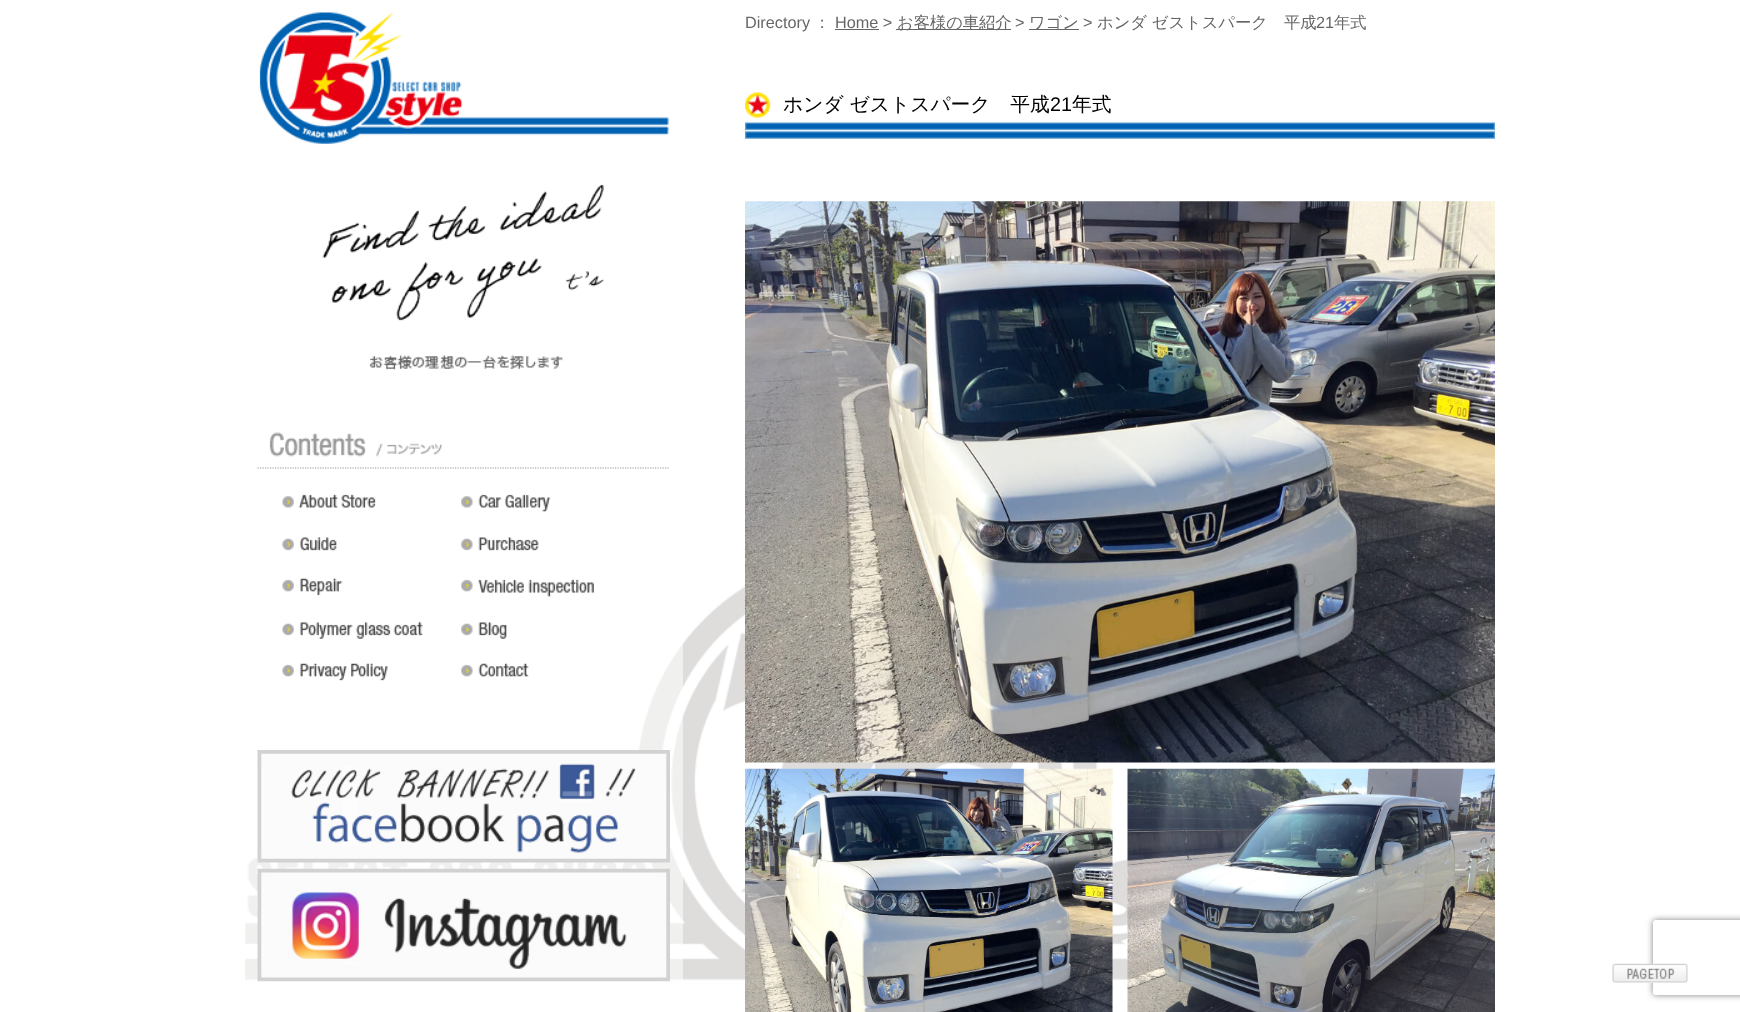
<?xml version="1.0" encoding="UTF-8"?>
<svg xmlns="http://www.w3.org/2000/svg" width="1740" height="1012">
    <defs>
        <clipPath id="clip1"><path d="M 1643 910 H 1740 V 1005 H 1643 Z M 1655.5 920 H 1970.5 C 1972 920 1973 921 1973 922.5 V 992.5 C 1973 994 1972 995 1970.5 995 H 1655.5 C 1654 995 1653 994 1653 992.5 V 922.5 C 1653 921 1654 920 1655.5 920 Z" clip-rule="evenodd"/></clipPath>
        <filter id="blur1" x="-50%" y="-200%" width="200%" height="500%"><feGaussianBlur stdDeviation="3"/></filter>
    </defs>
    <rect width="100%" height="100%" fill="#FFFFFF"/>
    <image x="259" y="12" width="410" height="132" href="img_01.png"/>
    <image x="322" y="184" width="282" height="186" href="img_02.png"/>
    <image x="245" y="551" width="1242" height="461" href="img_03.png"/>
    <text x="745" y="28" font-family="Liberation Sans" font-size="16.25" fill="#666666">Directory</text>
    <text x="814" y="28" font-family="WenQuanYi Zen Hei" font-size="16.25" font-weight="500" fill="#666666">：</text>
    <text x="835" y="28" font-family="Liberation Sans" font-size="16.25" fill="#666666">Home &gt;</text>
    <rect x="835" y="29" width="44" height="1" fill="#666666"/>
    <rect x="896" y="29" width="115" height="1" fill="#666666"/>
    <text x="897" y="28" font-family="WenQuanYi Zen Hei" font-size="16.25" font-weight="500" fill="#666666">お客様の車紹介</text>
    <text x="1015" y="28" font-family="Liberation Sans" font-size="16.25" fill="#666666">&gt;</text>
    <rect x="1029" y="29" width="50" height="1" fill="#666666"/>
    <text x="1029" y="28" font-family="WenQuanYi Zen Hei" font-size="16.25" font-weight="500" fill="#666666">ワゴン</text>
    <text x="1083" y="28" font-family="Liberation Sans" font-size="16.25" fill="#666666">&gt;</text>
    <text x="1097" y="28" font-family="WenQuanYi Zen Hei" font-size="16.25" font-weight="500" fill="#666666">ホンダ ゼストスパーク　平成</text>
    <text x="1316" y="28" font-family="Liberation Sans" font-size="16.25" fill="#666666">21</text>
    <text x="1334" y="28" font-family="WenQuanYi Zen Hei" font-size="16.25" font-weight="500" fill="#666666">年式</text>
    <image x="745" y="92" width="750" height="47" href="img_04.png"/>
    <text x="783" y="111" font-family="WenQuanYi Zen Hei" font-size="19.75" font-weight="500" fill="#000000">ホンダ ゼストスパーク　平成</text>
    <text x="1050" y="111" font-family="Liberation Sans" font-size="19.75" fill="#000000">21</text>
    <text x="1072" y="111" font-family="WenQuanYi Zen Hei" font-size="19.75" font-weight="500" fill="#000000">年式</text>
    <image x="745" y="201" width="750" height="562" href="img_05.png"/>
    <image x="745" y="768" width="368" height="244" href="img_06.png"/>
    <image x="1127" y="768" width="368" height="244" href="img_07.png"/>
    <rect x="245" y="643" width="438" height="337" fill="#FFFFFF" fill-opacity="0.55"/>
    <image x="269" y="432" width="174" height="25" href="img_08.png"/>
    <path d="M 257.5 468 H 670" fill="none" stroke="#999999" stroke-width="1.2" stroke-dasharray="1.25 1.25"/>
    <image x="282" y="493" width="94" height="15" href="img_09.png"/>
    <image x="461" y="494" width="90" height="18" href="img_10.png"/>
    <image x="282" y="537" width="55" height="14" href="img_11.png"/>
    <image x="461" y="537" width="78" height="14" href="img_12.png"/>
    <image x="282" y="578" width="61" height="18" href="img_13.png"/>
    <image x="461" y="578" width="133" height="19" href="img_14.png"/>
    <image x="282" y="621" width="141" height="18" href="img_15.png"/>
    <image x="461" y="622" width="46" height="17" href="img_16.png"/>
    <image x="282" y="663" width="106" height="18" href="img_17.png"/>
    <image x="461" y="663" width="68" height="14" href="img_18.png"/>
    <image x="257" y="750" width="413" height="113" href="img_19.png"/>
    <image x="257" y="868" width="413" height="114" href="img_20.png"/>
    <g clip-path="url(#clip1)">
        <rect x="1653" y="920" width="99" height="75" rx="2.5" fill="#808080" filter="url(#blur1)"/>
    </g>
    <rect x="1647" y="964" width="6" height="19" fill="#FFFFFF"/>
    <image x="1612" y="963" width="76" height="20" href="img_21.png"/>
</svg>
